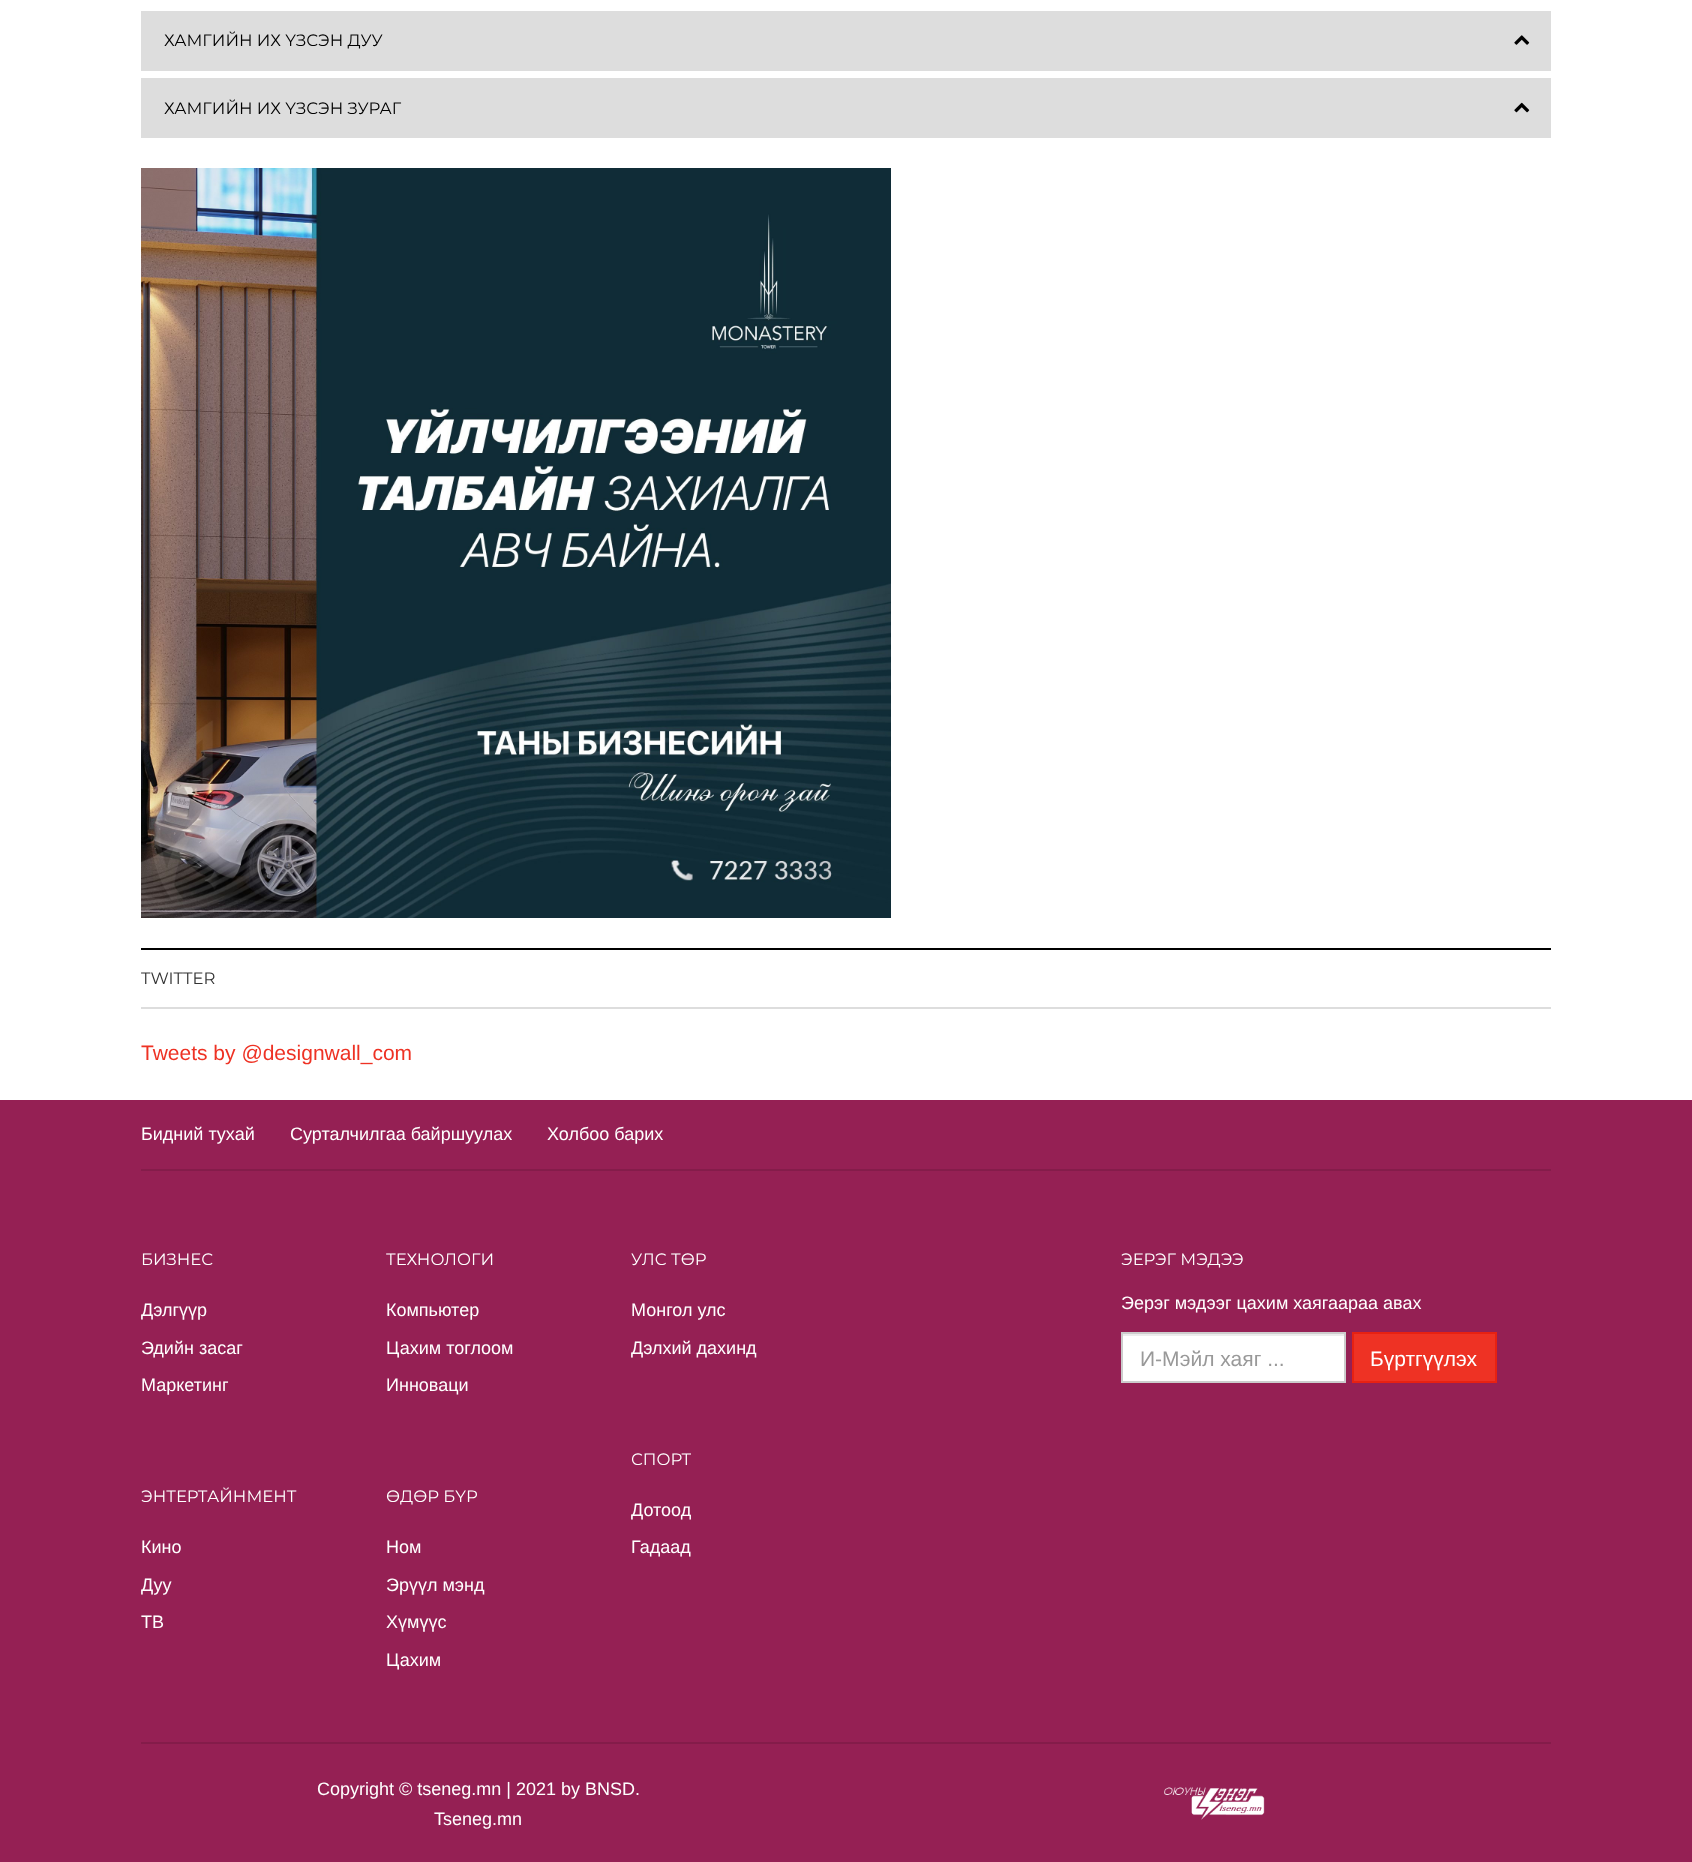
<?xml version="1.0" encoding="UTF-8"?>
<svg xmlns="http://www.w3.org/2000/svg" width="1692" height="1862">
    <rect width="100%" height="100%" fill="#FFFFFF"/>
    <rect x="141" y="11" width="1410" height="60" fill="#DDDDDD"/>
    <text x="164" y="46" font-family="Montserrat" font-size="16.5" fill="#000000">ХАМГИЙН ИХ ҮЗСЭН ДУУ</text>
    <image x="1514" y="35" width="16" height="10" href="img_01.png"/>
    <rect x="141" y="78" width="1410" height="60" fill="#DDDDDD"/>
    <text x="164" y="114" font-family="Montserrat" font-size="16.5" fill="#000000">ХАМГИЙН ИХ ҮЗСЭН ЗУРАГ</text>
    <image x="1514" y="102" width="16" height="11" href="img_02.png"/>
    <image x="141" y="168" width="750" height="750" href="img_03.png"/>
    <rect x="141" y="948" width="1410" height="2" fill="#000000"/>
    <rect x="141" y="1007" width="1410" height="2" fill="#DDDDDD"/>
    <text x="141" y="984" font-family="Montserrat" font-size="16.5" fill="#333333">TWITTER</text>
    <text x="141" y="1060" font-family="Liberation Sans" font-size="21" fill="#EE3224">Tweets by @designwall_com</text>
    <rect x="0" y="1100" width="1692" height="762" fill="#952054"/>
    <rect x="141" y="1169" width="1410" height="2" fill="#841C4A"/>
    <text x="141" y="1140" font-family="Liberation Sans" font-size="18" fill="#FFFFFF">Бидний тухай</text>
    <text x="290" y="1140" font-family="Liberation Sans" font-size="18" fill="#FFFFFF">Сурталчилгаа байршуулах</text>
    <text x="547" y="1140" font-family="Liberation Sans" font-size="18" fill="#FFFFFF">Холбоо барих</text>
    <rect x="141" y="1742" width="1410" height="2" fill="#841C4A"/>
    <text x="141" y="1265" font-family="Montserrat" font-size="16.5" fill="#FFFFFF">БИЗНЕС</text>
    <text x="141" y="1316" font-family="Liberation Sans" font-size="18" fill="#FFFFFF">Дэлгүүр</text>
    <text x="141" y="1354" font-family="Liberation Sans" font-size="18" fill="#FFFFFF">Эдийн засаг</text>
    <text x="141" y="1391" font-family="Liberation Sans" font-size="18" fill="#FFFFFF">Маркетинг</text>
    <text x="141" y="1502" font-family="Montserrat" font-size="16.5" fill="#FFFFFF">ЭНТЕРТАЙНМЕНТ</text>
    <text x="141" y="1553" font-family="Liberation Sans" font-size="18" fill="#FFFFFF">Кино</text>
    <text x="141" y="1591" font-family="Liberation Sans" font-size="18" fill="#FFFFFF">Дуу</text>
    <text x="141" y="1628" font-family="Liberation Sans" font-size="18" fill="#FFFFFF">TВ</text>
    <text x="386" y="1265" font-family="Montserrat" font-size="16.5" fill="#FFFFFF">ТЕХНОЛОГИ</text>
    <text x="386" y="1316" font-family="Liberation Sans" font-size="18" fill="#FFFFFF">Компьютер</text>
    <text x="386" y="1354" font-family="Liberation Sans" font-size="18" fill="#FFFFFF">Цахим тоглоом</text>
    <text x="386" y="1391" font-family="Liberation Sans" font-size="18" fill="#FFFFFF">Инноваци</text>
    <text x="386" y="1502" font-family="Montserrat" font-size="16.5" fill="#FFFFFF">ӨДӨР БҮР</text>
    <text x="386" y="1553" font-family="Liberation Sans" font-size="18" fill="#FFFFFF">Ном</text>
    <text x="386" y="1591" font-family="Liberation Sans" font-size="18" fill="#FFFFFF">Эрүүл мэнд</text>
    <text x="386" y="1628" font-family="Liberation Sans" font-size="18" fill="#FFFFFF">Хүмүүс</text>
    <text x="386" y="1666" font-family="Liberation Sans" font-size="18" fill="#FFFFFF">Цахим</text>
    <text x="631" y="1265" font-family="Montserrat" font-size="16.5" fill="#FFFFFF">УЛС ТӨР</text>
    <text x="631" y="1316" font-family="Liberation Sans" font-size="18" fill="#FFFFFF">Монгол улс</text>
    <text x="631" y="1354" font-family="Liberation Sans" font-size="18" fill="#FFFFFF">Дэлхий дахинд</text>
    <text x="631" y="1465" font-family="Montserrat" font-size="16.5" fill="#FFFFFF">СПОРТ</text>
    <text x="631" y="1516" font-family="Liberation Sans" font-size="18" fill="#FFFFFF">Дотоод</text>
    <text x="631" y="1553" font-family="Liberation Sans" font-size="18" fill="#FFFFFF">Гадаад</text>
    <text x="1121" y="1265" font-family="Montserrat" font-size="16.5" fill="#FFFFFF">ЭЕРЭГ МЭДЭЭ</text>
    <text x="1121" y="1309" font-family="Liberation Sans" font-size="18" fill="#FFFFFF">Эерэг мэдээг цахим хаягаараа авах</text>
    <rect x="1123" y="1336" width="221" height="45" fill="#FFFFFF"/>
    <rect x="1122" y="1334" width="222" height="2" fill="#ECECEC"/>
    <rect x="1122" y="1333" width="223" height="49" fill="none" stroke="#CCCCCC" stroke-width="2"/>
    <text x="1140" y="1366" font-family="Liberation Sans" font-size="21" fill="#999999">И-Мэйл хаяг ...</text>
    <rect x="1353" y="1333" width="143" height="49" fill="#EE3224" stroke="#E72112" stroke-width="2"/>
    <text x="1370" y="1366" font-family="Liberation Sans" font-size="21" fill="#FFFFFF">Бүртгүүлэх</text>
    <text x="317" y="1795" font-family="Liberation Sans" font-size="18" fill="#FFFFFF">Copyright © tseneg.mn | 2021 by BNSD.</text>
    <text x="434" y="1825" font-family="Liberation Sans" font-size="18" fill="#FFFFFF">Tseneg.mn</text>
    <image x="1164" y="1787" width="101" height="33" href="img_04.png"/>
</svg>
